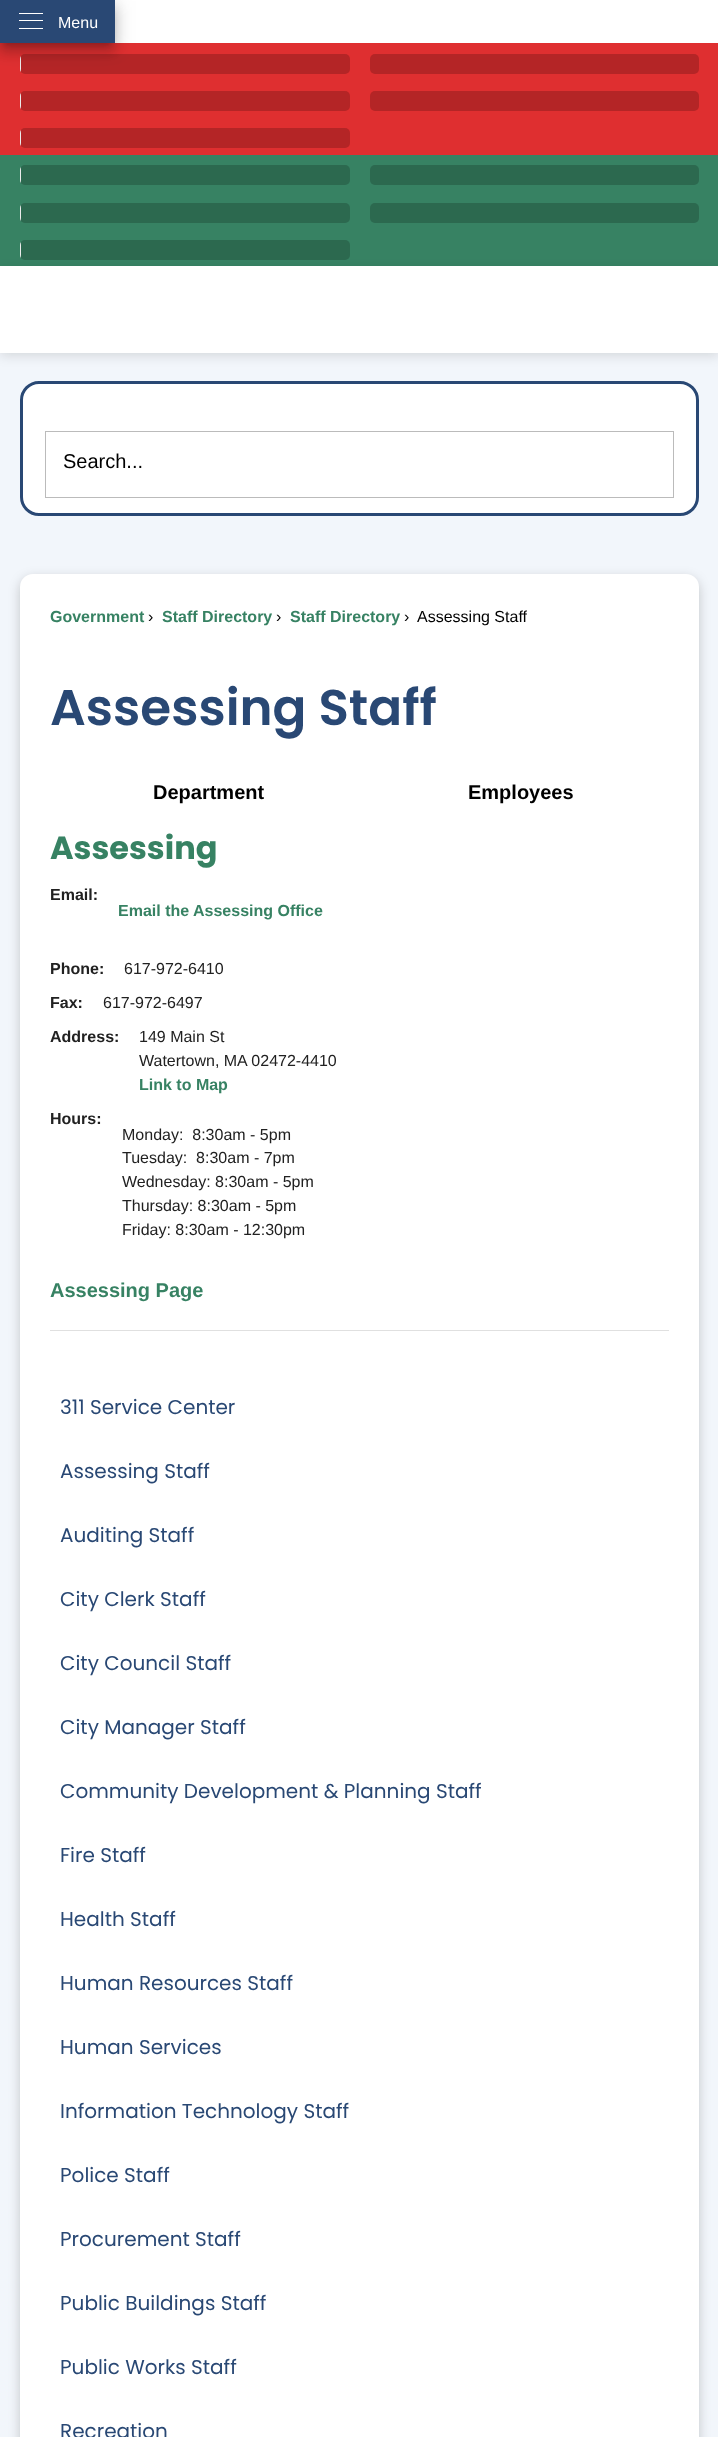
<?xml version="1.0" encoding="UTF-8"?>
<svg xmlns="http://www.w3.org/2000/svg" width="718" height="2437">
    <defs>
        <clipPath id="clip1"><rect x="20" y="54" width="330" height="20" rx="5"/></clipPath>
        <linearGradient id="g1" gradientUnits="userSpaceOnUse" x1="-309" y1="64" x2="21" y2="64"><stop offset="0" stop-color="#EBEBEB"/><stop offset="0.5" stop-color="#F5F5F5"/><stop offset="1" stop-color="#EBEBEB"/></linearGradient>
        <filter id="blur1" x="-50%" y="-200%" width="200%" height="500%"><feGaussianBlur stdDeviation="9"/></filter>
        <filter id="blur2" x="-50%" y="-200%" width="200%" height="500%"><feGaussianBlur stdDeviation="6"/></filter>
        <filter id="blur3" x="-50%" y="-200%" width="200%" height="500%"><feGaussianBlur stdDeviation="3"/></filter>
        <clipPath id="clip2"><rect x="20" y="91" width="330" height="20" rx="5"/></clipPath>
        <linearGradient id="g2" gradientUnits="userSpaceOnUse" x1="-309" y1="101" x2="21" y2="101"><stop offset="0" stop-color="#EBEBEB"/><stop offset="0.5" stop-color="#F5F5F5"/><stop offset="1" stop-color="#EBEBEB"/></linearGradient>
        <clipPath id="clip3"><rect x="20" y="128" width="330" height="20" rx="5"/></clipPath>
        <linearGradient id="g3" gradientUnits="userSpaceOnUse" x1="-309" y1="138" x2="21" y2="137"><stop offset="0" stop-color="#EBEBEB"/><stop offset="0.5" stop-color="#F5F5F5"/><stop offset="1" stop-color="#EBEBEB"/></linearGradient>
        <clipPath id="clip4"><rect x="20" y="165" width="330" height="20" rx="5"/></clipPath>
        <linearGradient id="g4" gradientUnits="userSpaceOnUse" x1="-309" y1="175" x2="21" y2="175"><stop offset="0" stop-color="#EBEBEB"/><stop offset="0.5" stop-color="#F5F5F5"/><stop offset="1" stop-color="#EBEBEB"/></linearGradient>
        <clipPath id="clip5"><rect x="20" y="203" width="330" height="20" rx="5"/></clipPath>
        <linearGradient id="g5" gradientUnits="userSpaceOnUse" x1="-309" y1="213" x2="21" y2="213"><stop offset="0" stop-color="#EBEBEB"/><stop offset="0.5" stop-color="#F5F5F5"/><stop offset="1" stop-color="#EBEBEB"/></linearGradient>
        <clipPath id="clip6"><rect x="20" y="240" width="330" height="20" rx="5"/></clipPath>
        <linearGradient id="g6" gradientUnits="userSpaceOnUse" x1="-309" y1="250" x2="21" y2="250"><stop offset="0" stop-color="#EBEBEB"/><stop offset="0.5" stop-color="#F5F5F5"/><stop offset="1" stop-color="#EBEBEB"/></linearGradient>
    </defs>
    <rect width="100%" height="100%" fill="#FFFFFF"/>
    <rect x="0" y="43" width="718" height="112" fill="#DF2F30"/>
    <rect x="20" y="54" width="330" height="20" rx="5" fill="#C92A2B"/>
    <rect x="20" y="54" width="330" height="20" rx="5" fill="#000000" fill-opacity="0.1"/>
    <g clip-path="url(#clip1)">
        <rect x="20" y="54" width="1" height="20" fill="url(#g1)"/>
    </g>
    <rect x="-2" y="1" width="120" height="48" fill="#000000" fill-opacity="0.12" filter="url(#blur1)"/>
    <rect x="-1" y="9" width="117" height="45" fill="#000000" fill-opacity="0.14" filter="url(#blur2)"/>
    <rect x="4" y="10" width="107" height="35" fill="#000000" fill-opacity="0.2" filter="url(#blur3)"/>
    <rect x="0" y="0" width="115" height="43" fill="#294874"/>
    <rect x="19" y="13" width="24" height="1" fill="#FFFFFF"/>
    <rect x="19" y="20" width="24" height="1" fill="#FFFFFF"/>
    <text x="58" y="28" font-family="Liberation Sans" font-size="16" fill="#FFFFFF">Menu</text>
    <rect x="19" y="28" width="24" height="1" fill="#FFFFFF"/>
    <rect x="20" y="91" width="330" height="20" rx="5" fill="#C92A2B"/>
    <rect x="20" y="91" width="330" height="20" rx="5" fill="#000000" fill-opacity="0.1"/>
    <g clip-path="url(#clip2)">
        <rect x="20" y="91" width="1" height="20" fill="url(#g2)"/>
    </g>
    <rect x="20" y="128" width="330" height="20" rx="5" fill="#C92A2B"/>
    <rect x="20" y="128" width="330" height="20" rx="5" fill="#000000" fill-opacity="0.1"/>
    <g clip-path="url(#clip3)">
        <rect x="20" y="128" width="1" height="20" fill="url(#g3)"/>
    </g>
    <rect x="370" y="54" width="329" height="20" rx="5" fill="#C92A2B"/>
    <rect x="370" y="54" width="329" height="20" rx="5" fill="#000000" fill-opacity="0.1"/>
    <rect x="370" y="91" width="329" height="20" rx="5" fill="#C92A2B"/>
    <rect x="370" y="91" width="329" height="20" rx="5" fill="#000000" fill-opacity="0.1"/>
    <rect x="0" y="155" width="718" height="111" fill="#378263"/>
    <rect x="20" y="165" width="330" height="20" rx="5" fill="#327559"/>
    <rect x="20" y="165" width="330" height="20" rx="5" fill="#000000" fill-opacity="0.1"/>
    <g clip-path="url(#clip4)">
        <rect x="20" y="165" width="1" height="20" fill="url(#g4)"/>
    </g>
    <rect x="20" y="203" width="330" height="20" rx="5" fill="#327559"/>
    <rect x="20" y="203" width="330" height="20" rx="5" fill="#000000" fill-opacity="0.1"/>
    <g clip-path="url(#clip5)">
        <rect x="20" y="203" width="1" height="20" fill="url(#g5)"/>
    </g>
    <rect x="20" y="240" width="330" height="20" rx="5" fill="#327559"/>
    <rect x="20" y="240" width="330" height="20" rx="5" fill="#000000" fill-opacity="0.1"/>
    <g clip-path="url(#clip6)">
        <rect x="20" y="240" width="1" height="20" fill="url(#g6)"/>
    </g>
    <rect x="370" y="165" width="329" height="20" rx="5" fill="#327559"/>
    <rect x="370" y="165" width="329" height="20" rx="5" fill="#000000" fill-opacity="0.1"/>
    <rect x="370" y="203" width="329" height="20" rx="5" fill="#327559"/>
    <rect x="370" y="203" width="329" height="20" rx="5" fill="#000000" fill-opacity="0.1"/>
    <rect x="0" y="353" width="718" height="2084" fill="#F2F6FB"/>
    <rect x="0" y="270" width="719" height="86" fill="#000000" fill-opacity="0.12" filter="url(#blur2)"/>
    <rect x="0" y="266" width="718" height="87" fill="#FFFFFF"/>
    <rect x="21.5" y="382.5" width="676" height="132" rx="17.5" fill="#FFFFFF" stroke="#294874" stroke-width="3"/>
    <rect x="45.5" y="431.5" width="628" height="66" fill="none" stroke="#BBBBBB"/>
    <text x="63" y="468" font-family="Liberation Sans" font-size="20" fill="#000000">Search...</text>
    <rect x="20" y="578" width="679" height="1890" rx="13" fill="#000000" fill-opacity="0.2" filter="url(#blur2)"/>
    <rect x="20" y="574" width="679" height="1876" rx="13" fill="#FFFFFF"/>
    <text x="50" y="622" font-family="Liberation Sans" font-size="16" font-weight="700" fill="#378263">Government</text>
    <text x="148" y="622" font-family="Liberation Sans" font-size="16" fill="#000000">›</text>
    <text x="162" y="622" font-family="Liberation Sans" font-size="16" font-weight="700" fill="#378263">Staff Directory</text>
    <text x="276" y="622" font-family="Liberation Sans" font-size="16" fill="#000000">›</text>
    <text x="290" y="622" font-family="Liberation Sans" font-size="16" font-weight="700" fill="#378263">Staff Directory</text>
    <text x="404" y="622" font-family="Liberation Sans" font-size="16" fill="#000000">›</text>
    <text x="417" y="622" font-family="Liberation Sans" font-size="16" fill="#000000">Assessing Staff</text>
    <text x="50" y="725" font-family="Poppins" font-size="50" font-weight="600" fill="#294874">Assessing Staff</text>
    <text x="153" y="799" font-family="Liberation Sans" font-size="20" font-weight="700" fill="#000000">Department</text>
    <text x="468" y="799" font-family="Liberation Sans" font-size="20" font-weight="700" fill="#000000">Employees</text>
    <text x="50" y="859" font-family="Poppins" font-size="32" font-weight="700" fill="#378263">Assessing</text>
    <text x="50" y="900" font-family="Liberation Sans" font-size="16" font-weight="700" fill="#212121">Email:</text>
    <text x="118" y="916" font-family="Liberation Sans" font-size="16" font-weight="700" fill="#378263">Email the Assessing Office</text>
    <text x="50" y="974" font-family="Liberation Sans" font-size="16" font-weight="700" fill="#212121">Phone:</text>
    <text x="124" y="974" font-family="Liberation Sans" font-size="16" fill="#212121">617-972-6410</text>
    <text x="50" y="1008" font-family="Liberation Sans" font-size="16" font-weight="700" fill="#212121">Fax:</text>
    <text x="103" y="1008" font-family="Liberation Sans" font-size="16" fill="#212121">617-972-6497</text>
    <text x="50" y="1042" font-family="Liberation Sans" font-size="16" font-weight="700" fill="#212121">Address:</text>
    <text font-family="Liberation Sans" font-size="16" fill="#212121">
        <tspan x="139" y="1042">149 Main St</tspan>
        <tspan x="139" y="1066">Watertown, MA 02472-4410</tspan>
    </text>
    <text x="139" y="1090" font-family="Liberation Sans" font-size="16" font-weight="700" fill="#378263">Link to Map</text>
    <text x="50" y="1124" font-family="Liberation Sans" font-size="16" font-weight="700" fill="#212121">Hours:</text>
    <text font-family="Liberation Sans" font-size="16" fill="#212121" xml:space="preserve"><tspan x="122" y="1140">Monday:  8:30am - 5pm</tspan><tspan x="122" y="1163">Tuesday:  8:30am - 7pm</tspan><tspan x="122" y="1187">Wednesday: 8:30am - 5pm</tspan><tspan x="122" y="1211">Thursday: 8:30am - 5pm</tspan><tspan x="122" y="1235">Friday: 8:30am - 12:30pm</tspan></text>
    <text x="50" y="1297" font-family="Liberation Sans" font-size="20" font-weight="700" fill="#378263">Assessing Page</text>
    <rect x="50" y="1330" width="619" height="1" fill="#E0E0E0"/>
    <text x="60" y="1414" font-family="Poppins" font-size="20" fill="#294874">311 Service Center</text>
    <text x="60" y="1478" font-family="Poppins" font-size="20" fill="#294874">Assessing Staff</text>
    <text x="60" y="1542" font-family="Poppins" font-size="20" fill="#294874">Auditing Staff</text>
    <text x="60" y="1606" font-family="Poppins" font-size="20" fill="#294874">City Clerk Staff</text>
    <text x="60" y="1670" font-family="Poppins" font-size="20" fill="#294874">City Council Staff</text>
    <text x="60" y="1734" font-family="Poppins" font-size="20" fill="#294874">City Manager Staff</text>
    <text x="60" y="1798" font-family="Poppins" font-size="20" fill="#294874">Community Development &amp; Planning Staff</text>
    <text x="60" y="1862" font-family="Poppins" font-size="20" fill="#294874">Fire Staff</text>
    <text x="60" y="1926" font-family="Poppins" font-size="20" fill="#294874">Health Staff</text>
    <text x="60" y="1990" font-family="Poppins" font-size="20" fill="#294874">Human Resources Staff</text>
    <text x="60" y="2054" font-family="Poppins" font-size="20" fill="#294874">Human Services</text>
    <text x="60" y="2118" font-family="Poppins" font-size="20" fill="#294874">Information Technology Staff</text>
    <text x="60" y="2182" font-family="Poppins" font-size="20" fill="#294874">Police Staff</text>
    <text x="60" y="2246" font-family="Poppins" font-size="20" fill="#294874">Procurement Staff</text>
    <text x="60" y="2310" font-family="Poppins" font-size="20" fill="#294874">Public Buildings Staff</text>
    <text x="60" y="2374" font-family="Poppins" font-size="20" fill="#294874">Public Works Staff</text>
    <text x="60" y="2438" font-family="Poppins" font-size="20" fill="#294874">Recreation</text>
</svg>
